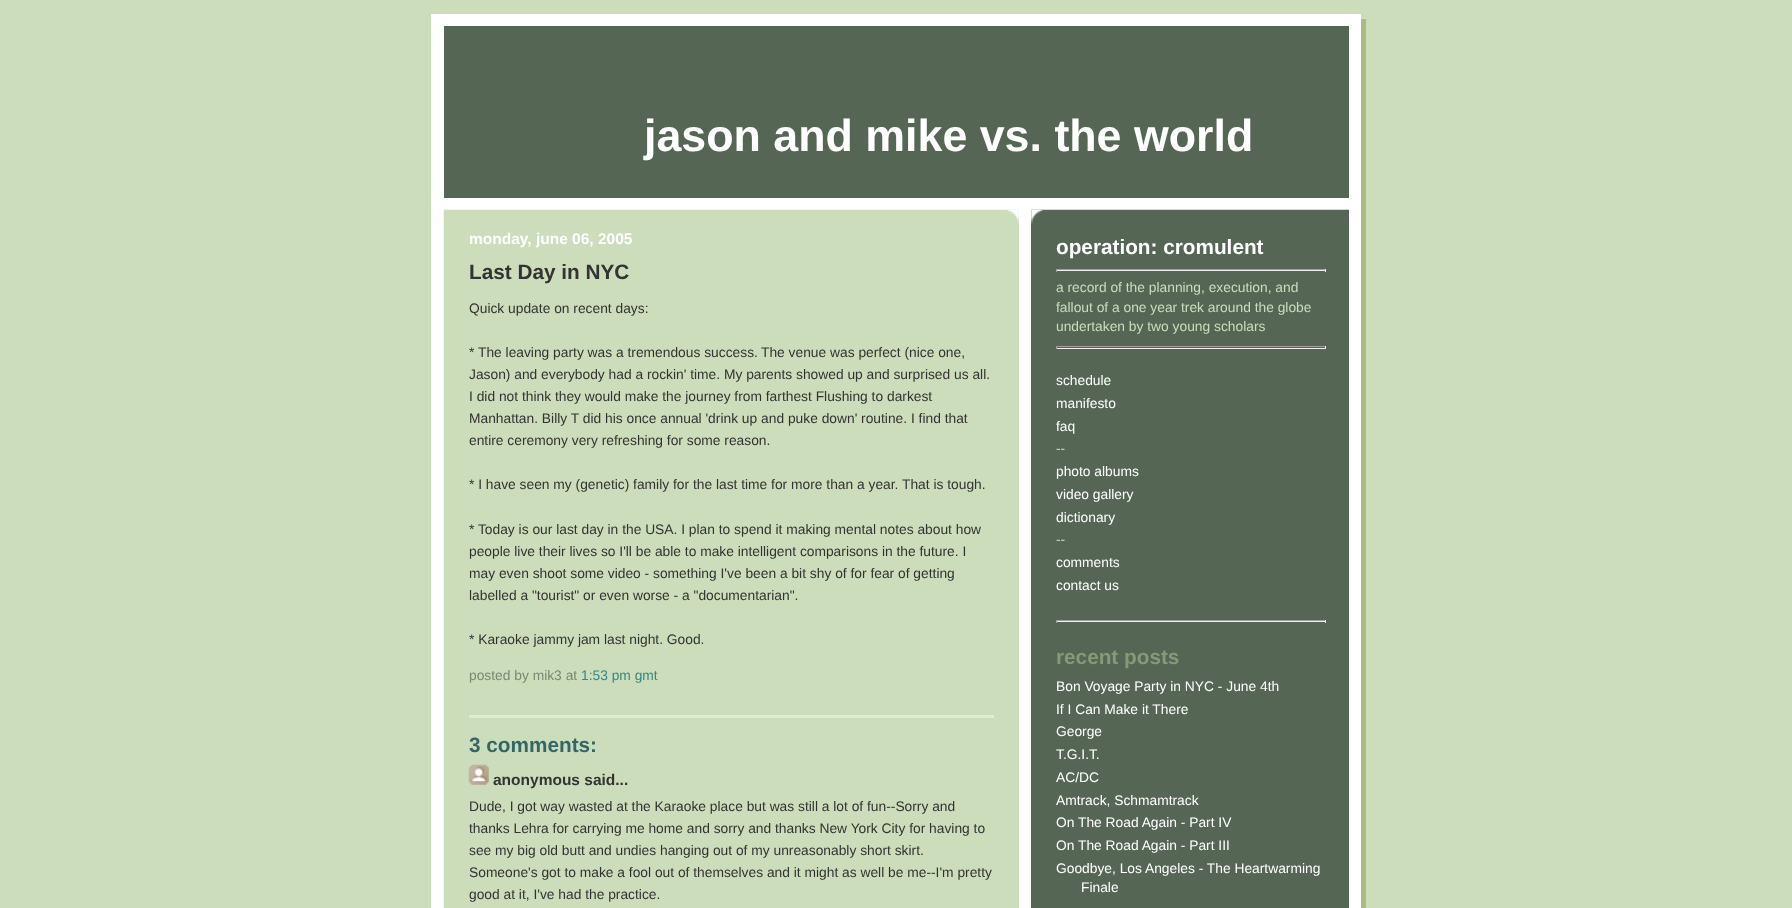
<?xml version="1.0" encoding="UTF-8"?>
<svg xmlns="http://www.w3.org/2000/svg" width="1792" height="908">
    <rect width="100%" height="100%" fill="#CCDDBB"/>
    <rect x="1361" y="19" width="5" height="889" fill="#AABB88"/>
    <rect x="431" y="14" width="930" height="894" fill="#FFFFFF"/>
    <rect x="444" y="26" width="905" height="172" fill="#556655"/>
    <text x="644" y="151" font-family="Liberation Sans" font-size="44.75" font-weight="700" fill="#FFFFFF">jason and mike vs. the world</text>
    <image x="443" y="209" width="906" height="699" href="img_01.png"/>
    <rect x="1018" y="210" width="1" height="698" fill="#CCDDBB"/>
    <image x="1007" y="209" width="12" height="15" href="img_02.png"/>
    <text x="469" y="244" font-family="Liberation Sans" font-size="15.5" font-weight="700" fill="#FFFFFF">monday, june 06, 2005</text>
    <text x="469" y="279" font-family="Liberation Sans" font-size="20.75" font-weight="700" fill="#333333">Last Day in NYC</text>
    <text x="469" y="313" font-family="Liberation Sans" font-size="13.8" fill="#333333">Quick update on recent days:</text>
    <text x="469" y="357" font-family="Liberation Sans" font-size="13.8" fill="#333333">* The leaving party was a tremendous success.</text>
    <text x="761" y="357" font-family="Liberation Sans" font-size="13.8" fill="#333333">The venue was perfect (nice one,</text>
    <text font-family="Liberation Sans" font-size="13.8" fill="#333333">
        <tspan x="469" y="379">Jason) and everybody had a rockin' time. My parents showed up and surprised us all.</tspan>
        <tspan x="469" y="401">I did not think they would make the journey from farthest Flushing to darkest</tspan>
        <tspan x="469" y="423">Manhattan. Billy T did his once annual 'drink up and puke down' routine. I find that</tspan>
        <tspan x="469" y="445">entire ceremony very refreshing for some reason.</tspan>
    </text>
    <text x="469" y="489" font-family="Liberation Sans" font-size="13.8" fill="#333333">* I have seen my (genetic) family for the last time for more than a year.</text>
    <text x="902" y="489" font-family="Liberation Sans" font-size="13.8" fill="#333333">That is tough.</text>
    <text font-family="Liberation Sans" font-size="13.8" fill="#333333">
        <tspan x="469" y="534">* Today is our last day in the USA. I plan to spend it making mental notes about how</tspan>
        <tspan x="469" y="556">people live their lives so I'll be able to make intelligent comparisons in the future. I</tspan>
        <tspan x="469" y="578">may even shoot some video - something I've been a bit shy of for fear of getting</tspan>
        <tspan x="469" y="600">labelled a "tourist" or even worse - a "documentarian".</tspan>
    </text>
    <text x="469" y="644" font-family="Liberation Sans" font-size="13.8" fill="#333333">* Karaoke jammy jam last night. Good.</text>
    <text x="469" y="680" font-family="Liberation Sans" font-size="13.8" fill="#778877">posted by mik3 at</text>
    <text x="581" y="680" font-family="Liberation Sans" font-size="13.8" fill="#338888">1:53 pm gmt</text>
    <rect x="469" y="715" width="525" height="3" fill="#DDEECC"/>
    <text x="469" y="752" font-family="Liberation Sans" font-size="20.75" font-weight="700" fill="#336666">3 comments:</text>
    <image x="468" y="764" width="21" height="21" href="img_03.png"/>
    <text x="493" y="785" font-family="Liberation Sans" font-size="15.5" font-weight="700" fill="#333333">anonymous said...</text>
    <text font-family="Liberation Sans" font-size="13.8" fill="#333333">
        <tspan x="469" y="811">Dude, I got way wasted at the Karaoke place but was still a lot of fun--Sorry and</tspan>
        <tspan x="469" y="833">thanks Lehra for carrying me home and sorry and thanks New York City for having to</tspan>
        <tspan x="469" y="855">see my big old butt and undies hanging out of my unreasonably short skirt.</tspan>
        <tspan x="469" y="877">Someone's got to make a fool out of themselves and it might as well be me--I'm pretty</tspan>
        <tspan x="469" y="899">good at it, I've had the practice.</tspan>
    </text>
    <rect x="1031" y="210" width="318" height="698" fill="#556655"/>
    <image x="1031" y="209" width="12" height="15" href="img_04.png"/>
    <text x="1056" y="254" font-family="Liberation Sans" font-size="20.75" font-weight="700" fill="#FFFFFF">operation: cromulent</text>
    <rect x="1056" y="269" width="270" height="1" fill="#9F9F9F"/>
    <rect x="1325" y="269" width="1" height="3" fill="#EEEEEE"/>
    <rect x="1056" y="270" width="270" height="1" fill="#EEEEEE"/>
    <rect x="1056" y="269" width="1" height="3" fill="#9F9F9F"/>
    <text font-family="Liberation Sans" font-size="13.8" fill="#CCDDBB">
        <tspan x="1056" y="292">a record of the planning, execution, and</tspan>
        <tspan x="1056" y="312">fallout of a one year trek around the globe</tspan>
        <tspan x="1056" y="331">undertaken by two young scholars</tspan>
    </text>
    <rect x="1056" y="346" width="270" height="1" fill="#9F9F9F"/>
    <rect x="1325" y="346" width="1" height="3" fill="#EEEEEE"/>
    <rect x="1056" y="348" width="270" height="1" fill="#EEEEEE"/>
    <rect x="1056" y="346" width="1" height="3" fill="#9F9F9F"/>
    <text font-family="Liberation Sans" font-size="13.8" fill="#FFFFFF">
        <tspan x="1056" y="385">schedule</tspan>
        <tspan x="1056" y="408">manifesto</tspan>
        <tspan x="1056" y="431">faq</tspan>
    </text>
    <text x="1056" y="453" font-family="Liberation Sans" font-size="13.8" fill="#CCDDBB">--</text>
    <text font-family="Liberation Sans" font-size="13.8" fill="#FFFFFF">
        <tspan x="1056" y="476">photo albums</tspan>
        <tspan x="1056" y="499">video gallery</tspan>
        <tspan x="1056" y="522">dictionary</tspan>
    </text>
    <text x="1056" y="544" font-family="Liberation Sans" font-size="13.8" fill="#CCDDBB">--</text>
    <text font-family="Liberation Sans" font-size="13.8" fill="#FFFFFF">
        <tspan x="1056" y="567">comments</tspan>
        <tspan x="1056" y="590">contact us</tspan>
    </text>
    <rect x="1056" y="620" width="270" height="1" fill="#9F9F9F"/>
    <rect x="1325" y="620" width="1" height="3" fill="#EEEEEE"/>
    <rect x="1056" y="621" width="270" height="1" fill="#EEEEEE"/>
    <rect x="1056" y="620" width="1" height="3" fill="#9F9F9F"/>
    <text x="1056" y="664" font-family="Liberation Sans" font-size="20.75" font-weight="700" fill="#889977">recent posts</text>
    <text font-family="Liberation Sans" font-size="13.8" fill="#FFFFFF">
        <tspan x="1056" y="691">Bon Voyage Party in NYC - June 4th</tspan>
        <tspan x="1056" y="714">If I Can Make it There</tspan>
        <tspan x="1056" y="736">George</tspan>
        <tspan x="1056" y="759">T.G.I.T.</tspan>
        <tspan x="1056" y="782">AC/DC</tspan>
        <tspan x="1056" y="805">Amtrack, Schmamtrack</tspan>
        <tspan x="1056" y="827">On The Road Again - Part IV</tspan>
        <tspan x="1056" y="850">On The Road Again - Part III</tspan>
        <tspan x="1056" y="873">Goodbye, Los Angeles - The Heartwarming</tspan>
    </text>
    <text x="1081" y="892" font-family="Liberation Sans" font-size="13.8" fill="#FFFFFF">Finale</text>
</svg>
